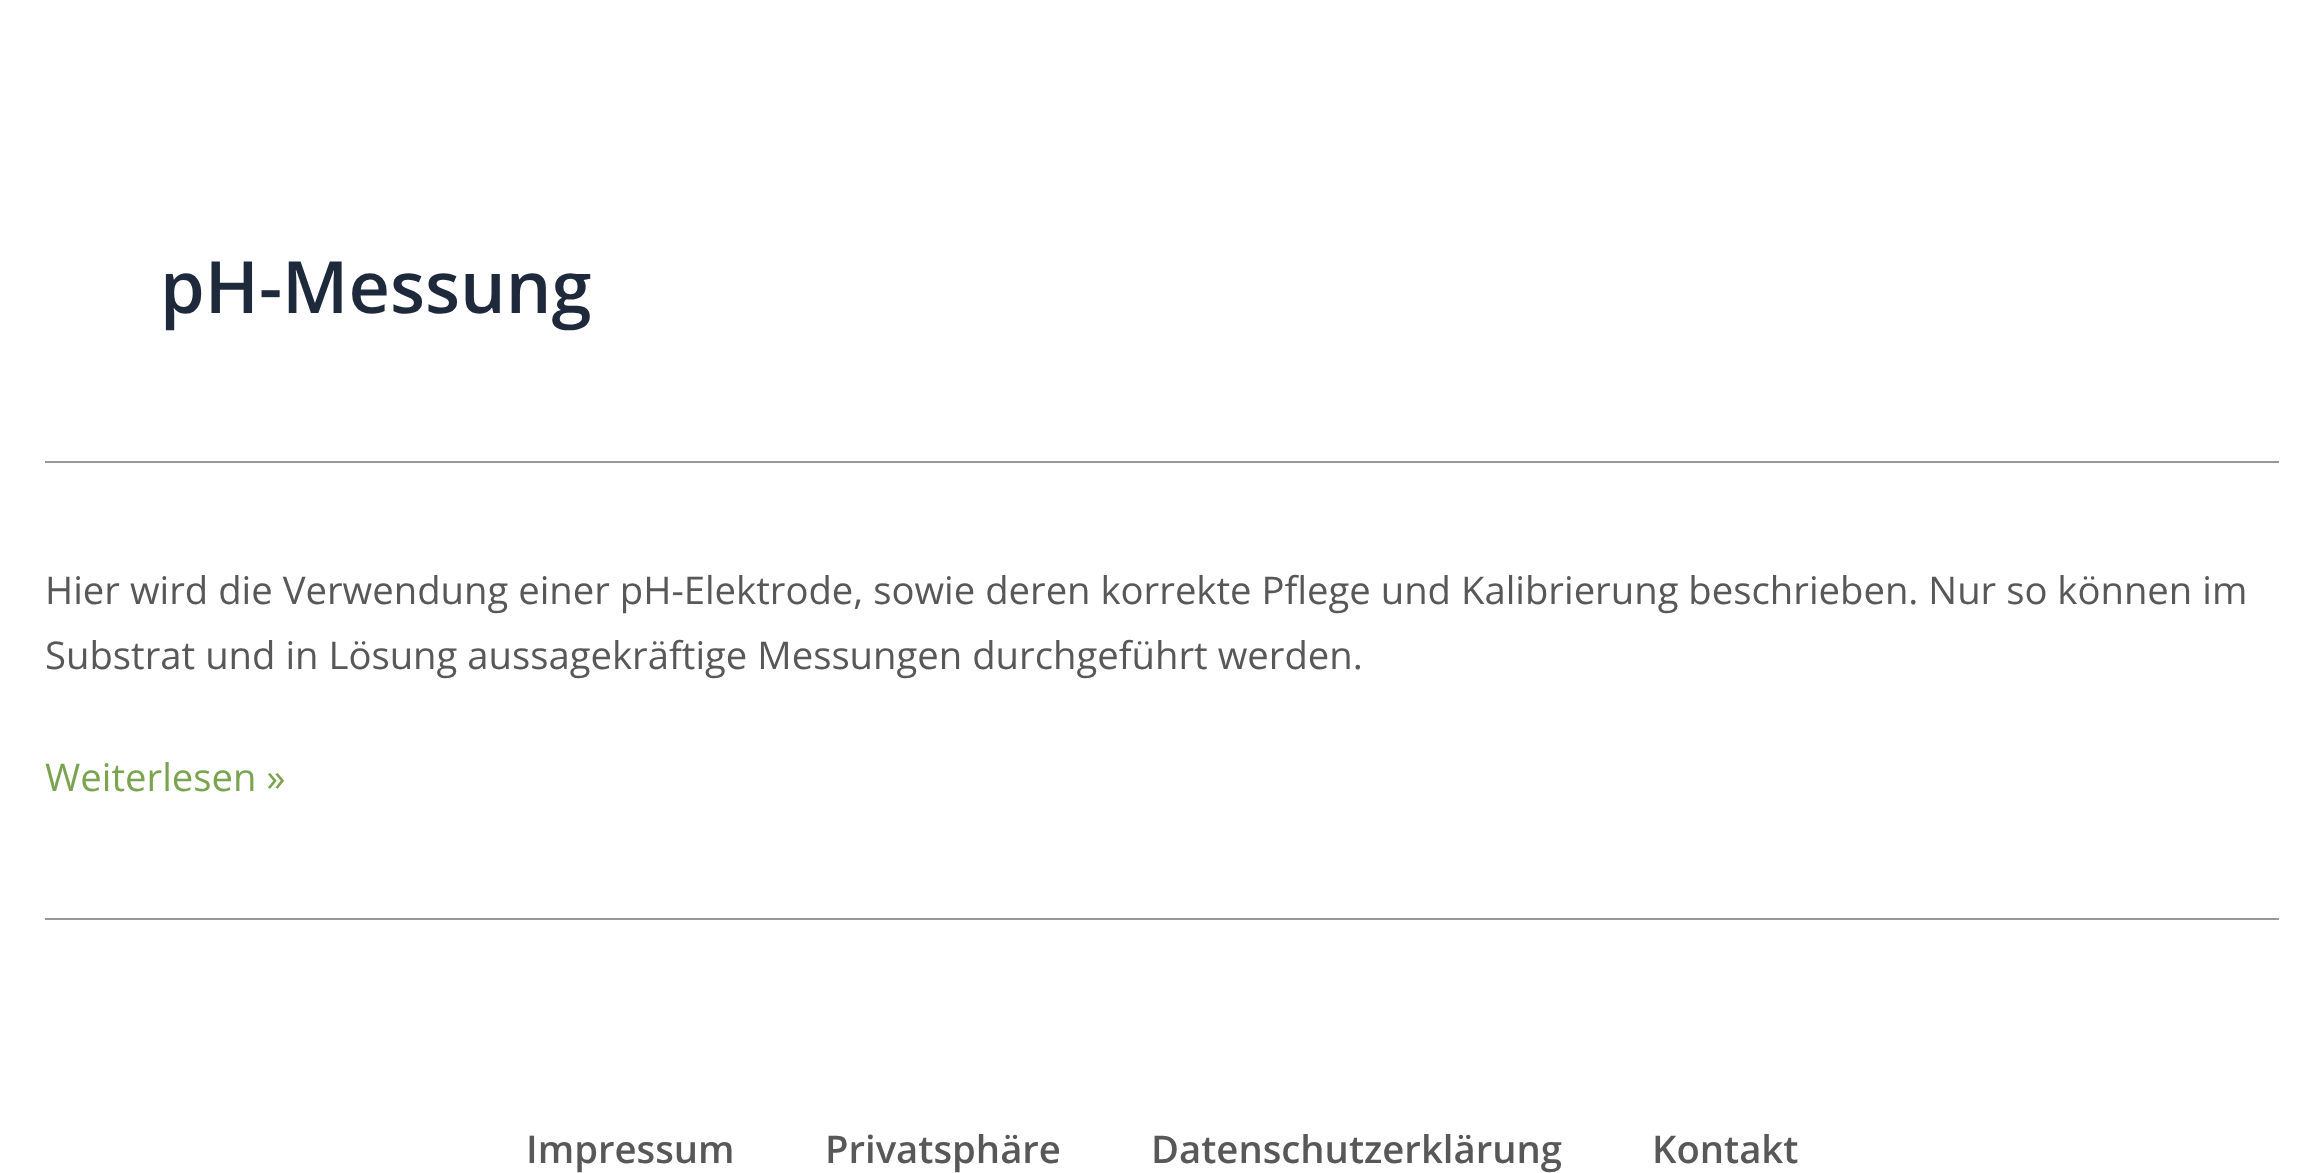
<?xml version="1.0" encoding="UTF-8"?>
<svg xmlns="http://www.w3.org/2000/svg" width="2323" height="1173">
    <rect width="100%" height="100%" fill="#FFFFFF"/>
    <rect x="45" y="461" width="2234" height="2" fill="#989898"/>
    <text x="160" y="313" font-family="Open Sans" font-size="72" font-weight="600" fill="#1E293B">pH-Messung</text>
    <rect x="45" y="918" width="2234" height="2" fill="#989898"/>
    <text font-family="Open Sans" font-size="38.25" fill="#585858">
        <tspan x="45" y="604">Hier wird die Verwendung einer pH-Elektrode, sowie deren korrekte Pflege und Kalibrierung beschrieben. Nur so können im</tspan>
        <tspan x="45" y="669">Substrat und in Lösung aussagekräftige Messungen durchgeführt werden.</tspan>
    </text>
    <text x="45" y="791" font-family="Open Sans" font-size="38.25" fill="#7BA451">Weiterlesen »</text>
    <text x="526" y="1163" font-family="Open Sans" font-size="38.25" font-weight="600" fill="#585858">Impressum</text>
    <text x="825" y="1163" font-family="Open Sans" font-size="38.25" font-weight="600" fill="#585858">Privatsphäre</text>
    <text x="1151" y="1163" font-family="Open Sans" font-size="38.25" font-weight="600" fill="#585858">Datenschutzerklärung</text>
    <text x="1652" y="1163" font-family="Open Sans" font-size="38.25" font-weight="600" fill="#585858">Kontakt</text>
</svg>
